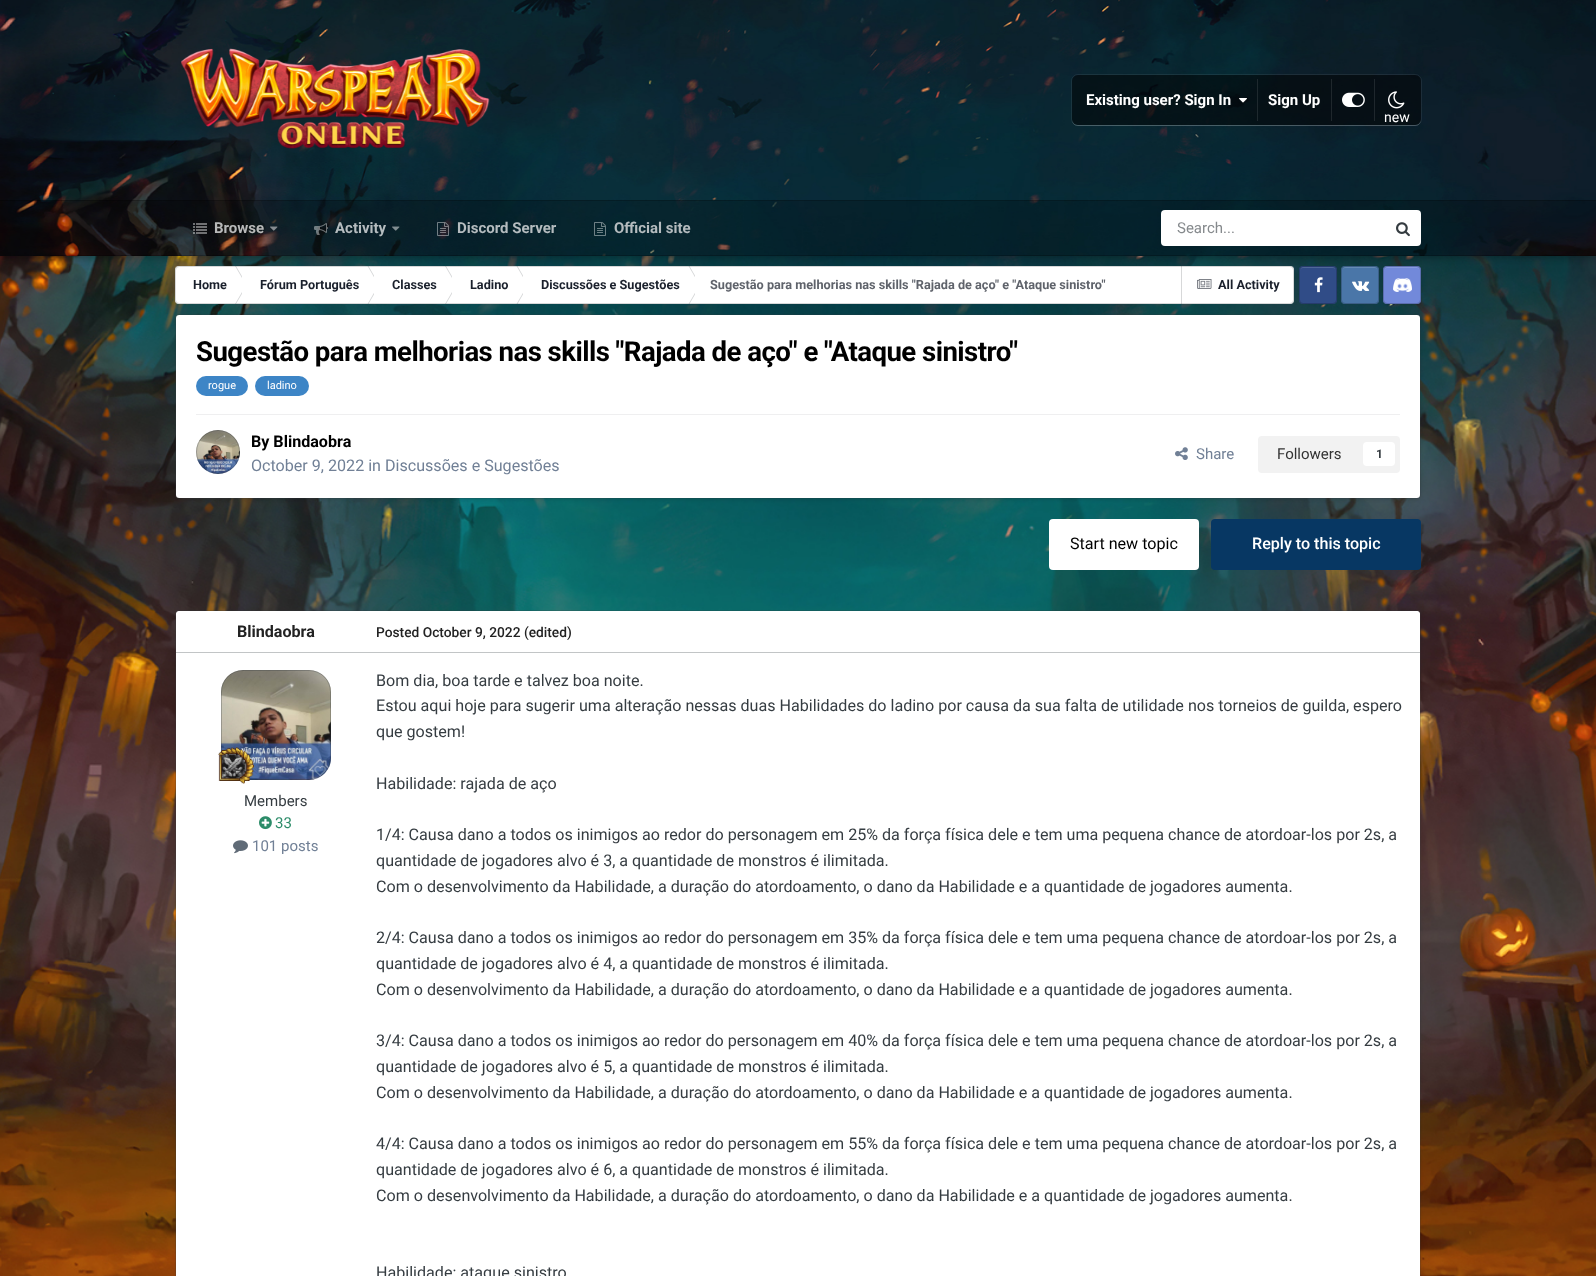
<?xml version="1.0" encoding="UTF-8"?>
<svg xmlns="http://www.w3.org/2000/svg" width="1596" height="1276">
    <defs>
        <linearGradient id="g1" gradientUnits="userSpaceOnUse" x1="735" y1="266" x2="735" y2="304"><stop offset="0" stop-color="#FFFFFF" stop-opacity="0.05"/><stop offset="1" stop-color="#FFFFFF" stop-opacity="0"/></linearGradient>
        <clipPath id="clip1"><rect x="175" y="266" width="67" height="38"/></clipPath>
        <clipPath id="clip2"><rect x="242" y="266" width="132" height="38"/></clipPath>
        <clipPath id="clip3"><rect x="374" y="266" width="78" height="38"/></clipPath>
        <clipPath id="clip4"><rect x="452" y="266" width="71" height="38"/></clipPath>
        <clipPath id="clip5"><rect x="523" y="266" width="172" height="38"/></clipPath>
        <filter id="blur1" x="-50%" y="-200%" width="200%" height="500%"><feGaussianBlur stdDeviation="1.5"/></filter>
        <filter id="blur2" x="-50%" y="-200%" width="200%" height="500%"><feGaussianBlur stdDeviation="5"/></filter>
        <filter id="blur3" x="-50%" y="-200%" width="200%" height="500%"><feGaussianBlur stdDeviation="2"/></filter>
    </defs>
    <rect width="100%" height="100%" fill="#FFFFFF"/>
    <image x="0" y="0" width="1596" height="1276" href="img_01.png"/>
    <rect x="175" y="266" width="1119" height="38" rx="4" fill="#FFFFFF"/>
    <rect x="175" y="266" width="1119" height="3" fill="url(#g1)"/>
    <g clip-path="url(#clip1)">
        <path d="M 235 266 H 236 L 247 285 H 246 Z M 235 304 H 236 L 247 285 H 246 Z" fill="#D7D8D9"/>
    </g>
    <g clip-path="url(#clip2)">
        <path d="M 367.5 266 H 368.5 L 379.5 285 H 378.5 Z M 367.5 304 H 368.5 L 379.5 285 H 378.5 Z" fill="#D7D8D9"/>
    </g>
    <g clip-path="url(#clip3)">
        <path d="M 445 266 H 446 L 457 285 H 456 Z M 445 304 H 446 L 457 285 H 456 Z" fill="#D7D8D9"/>
    </g>
    <g clip-path="url(#clip4)">
        <path d="M 516.5 266 H 517.5 L 528.5 285 H 527.5 Z M 516.5 304 H 517.5 L 528.5 285 H 527.5 Z" fill="#D7D8D9"/>
    </g>
    <g clip-path="url(#clip5)">
        <path d="M 688.5 266 H 689.5 L 700.5 285 H 699.5 Z M 688.5 304 H 689.5 L 700.5 285 H 699.5 Z" fill="#D7D8D9"/>
    </g>
    <rect x="1181" y="266" width="1" height="38" fill="#D7D8D9"/>
    <image x="1197" y="279" width="15" height="10" href="img_14.png"/>
    <rect x="175.5" y="266.5" width="1118" height="37" rx="3.5" fill="none" stroke="#353C41" stroke-opacity="0.2"/>
    <rect x="1299" y="266" width="38" height="38" rx="4" fill="#304C87"/>
    <path d="M 1303 268 C 1301 268 1300 269 1300 271 C 1300 266 1304 267 1308 267 H 1328 C 1332 267 1336 266 1336 271 C 1336 269 1335 268 1333 268 Z" fill="#4F6799"/>
    <image x="1314" y="277" width="9" height="16" href="img_15.png"/>
    <rect x="1299.5" y="266.5" width="37" height="37" rx="3.5" fill="none" stroke="#000000" stroke-opacity="0.2"/>
    <rect x="1341" y="266" width="38" height="38" rx="4" fill="#4A76A8"/>
    <path d="M 1345 268 C 1343 268 1342 269 1342 271 C 1342 266 1346 267 1350 267 H 1370 C 1374 267 1378 266 1378 271 C 1378 269 1377 268 1375 268 Z" fill="#658BB5"/>
    <image x="1352" y="281" width="18" height="10" href="img_16.png"/>
    <rect x="1341.5" y="266.5" width="37" height="37" rx="3.5" fill="none" stroke="#000000" stroke-opacity="0.2"/>
    <rect x="1383" y="267" width="38" height="38" rx="4" fill="#000000" fill-opacity="0.1" filter="url(#blur1)"/>
    <rect x="1383" y="266" width="38" height="38" rx="4" fill="#7289DA"/>
    <path d="M 1387 268 C 1385 268 1384 269 1384 271 C 1384 266 1388 267 1392 267 H 1412 C 1416 267 1420 266 1420 271 C 1420 269 1419 268 1417 268 Z" fill="#879BE0"/>
    <image x="1393" y="278" width="19" height="14" href="img_17.png"/>
    <rect x="1383.5" y="266.5" width="37" height="37" rx="3.5" fill="none" stroke="#000000" stroke-opacity="0.2"/>
    <rect x="0" y="1" width="1596" height="256" fill="#000000" fill-opacity="0.35" filter="url(#blur2)"/>
    <image x="0" y="0" width="1596" height="256" href="img_02.png"/>
    <image x="181" y="48" width="309" height="101" href="img_03.png"/>
    <rect x="1071.5" y="74.5" width="350" height="51" rx="6.5" fill="none" stroke="#FFFFFF" stroke-opacity="0.07"/>
    <path d="M 1072 119 C 1072 123 1074 126 1078 126 H 1415 C 1419 126 1421 123 1421 119 C 1421 122 1418 125 1415 125 H 1078 C 1075 125 1072 122 1072 119 Z" fill="#FFFFFF" fill-opacity="0.2"/>
    <rect x="1072" y="75" width="349" height="50" rx="6" fill="#000000" fill-opacity="0.5"/>
    <text x="1086" y="105" font-family="Roboto" font-size="15" font-weight="700" fill="#FFFFFF">Existing user? Sign In</text>
    <image x="1239" y="98" width="8" height="5" href="img_04.png"/>
    <rect x="1257" y="79" width="1" height="42" fill="#1E292E"/>
    <text x="1268" y="105" font-family="Roboto" font-size="15" font-weight="700" fill="#FFFFFF">Sign Up</text>
    <rect x="1331" y="79" width="1" height="42" fill="#1F272C"/>
    <image x="1342" y="92" width="23" height="15" href="img_05.png"/>
    <rect x="1374" y="79" width="1" height="42" fill="#1F272D"/>
    <image x="1388" y="91" width="17" height="18" href="img_06.png"/>
    <text x="1384" y="122" font-family="Roboto" font-size="14" fill="#FFFFFF">new</text>
    <rect x="0" y="200" width="1596" height="56" fill="#000000" fill-opacity="0.2"/>
    <rect x="0" y="200" width="1596" height="1" fill="#000000" fill-opacity="0.2"/>
    <rect x="50" y="255" width="1546" height="1" fill="#000000" fill-opacity="0.2"/>
    <image x="193" y="223" width="14" height="11" href="img_07.png"/>
    <text x="214" y="233" font-family="Roboto" font-size="15" font-weight="700" fill="#B8B9B9">Browse</text>
    <image x="270" y="226" width="8" height="5" href="img_08.png"/>
    <image x="314" y="223" width="14" height="12" href="img_09.png"/>
    <text x="335" y="233" font-family="Roboto" font-size="15" font-weight="700" fill="#B5BCBF">Activity</text>
    <image x="392" y="226" width="8" height="5" href="img_10.png"/>
    <image x="437" y="222" width="12" height="14" href="img_11.png"/>
    <text x="457" y="233" font-family="Roboto" font-size="15" font-weight="700" fill="#B5BCBF">Discord Server</text>
    <image x="594" y="222" width="12" height="14" href="img_12.png"/>
    <text x="614" y="233" font-family="Roboto" font-size="15" font-weight="700" fill="#B5BCBF">Official site</text>
    <rect x="1161" y="210" width="260" height="36" rx="4" fill="#FFFFFF"/>
    <text x="1177" y="233" font-family="Roboto" font-size="15" fill="#868A8D">Search...</text>
    <image x="1396" y="222" width="14" height="15" href="img_13.png"/>
    <text x="193" y="289" font-family="Roboto" font-size="12.7" font-weight="700" fill="#1A202C">Home</text>
    <text x="260" y="289" font-family="Roboto" font-size="12.7" font-weight="700" fill="#1A202C">Fórum Português</text>
    <text x="392" y="289" font-family="Roboto" font-size="12.7" font-weight="700" fill="#1A202C">Classes</text>
    <text x="470" y="289" font-family="Roboto" font-size="12.7" font-weight="700" fill="#1A202C">Ladino</text>
    <text x="541" y="289" font-family="Roboto" font-size="12.7" font-weight="700" fill="#1A202C">Discussões e Sugestões</text>
    <text x="710" y="289" font-family="Roboto" font-size="12.7" font-weight="700" fill="#5F636B">Sugestão para melhorias nas skills "Rajada de aço" e "Ataque sinistro"</text>
    <text x="1218" y="289" font-family="Roboto" font-size="12.7" font-weight="700" fill="#1A202C">All Activity</text>
    <rect x="176" y="317" width="1244" height="183" rx="3" fill="#000000" fill-opacity="0.1" filter="url(#blur3)"/>
    <rect x="176" y="315" width="1244" height="183" rx="3" fill="#FFFFFF"/>
    <rect x="175.5" y="314.5" width="1245" height="184" rx="3.5" fill="none" stroke="#353C41" stroke-opacity="0.2"/>
    <text x="196" y="361" font-family="Roboto" font-size="27.6" font-weight="700" letter-spacing="-0.55" fill="#000000">Sugestão para melhorias nas skills "Rajada de aço" e "Ataque sinistro"</text>
    <rect x="196" y="376" width="52" height="20" rx="10" fill="#3D85C6"/>
    <text x="208" y="389" font-family="Roboto" font-size="11" fill="#FFFFFF">rogue</text>
    <rect x="255" y="376" width="54" height="20" rx="10" fill="#3D85C6"/>
    <text x="267" y="389" font-family="Roboto" font-size="11" fill="#FFFFFF">ladino</text>
    <rect x="196" y="414" width="1204" height="1" fill="#EFEFF0"/>
    <image x="196" y="430" width="44" height="44" href="img_18.png"/>
    <circle cx="218" cy="452" r="21.5" fill="none" stroke="#353C41" stroke-opacity="0.3"/>
    <text x="251" y="447" font-family="Roboto" font-size="16.1" font-weight="700" fill="#000000">By Blindaobra</text>
    <text x="251" y="471" font-family="Roboto" font-size="16.1" fill="#718096">October 9, 2022 in Discussões e Sugestões</text>
    <image x="1175" y="447" width="13" height="13" href="img_19.png"/>
    <text x="1196" y="459" font-family="Roboto" font-size="15" fill="#718096">Share</text>
    <rect x="1258" y="436" width="142" height="37" rx="4" fill="#F2F2F2"/>
    <text x="1277" y="459" font-family="Roboto" font-size="15" fill="#333333">Followers</text>
    <rect x="1363" y="442" width="32" height="24" rx="4" fill="#FFFFFF"/>
    <text x="1376" y="458" font-family="Roboto" font-size="12" font-weight="700" fill="#353C41">1</text>
    <rect x="1049" y="519" width="150" height="51" rx="4" fill="#FFFFFF"/>
    <text x="1070" y="549" font-family="Roboto" font-size="16.1" fill="#000000">Start new topic</text>
    <rect x="1211" y="519" width="210" height="51" rx="4" fill="#073763"/>
    <text x="1252" y="549" font-family="Roboto" font-size="16.1" font-weight="500" fill="#FFFFFF">Reply to this topic</text>
    <rect x="176" y="613" width="1244" height="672" rx="3" fill="#000000" fill-opacity="0.1" filter="url(#blur3)"/>
    <rect x="176" y="611" width="1244" height="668" rx="3" fill="#FFFFFF"/>
    <rect x="175.5" y="610.5" width="1245" height="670" rx="3.5" fill="none" stroke="#353C41" stroke-opacity="0.2"/>
    <path d="M 180 611 H 1416 C 1418 611 1420 613 1420 615 V 653 H 176 V 615 C 176 613 178 611 180 611 Z" fill="#FFFFFF"/>
    <rect x="176" y="652" width="1244" height="1" fill="#C2C5C6"/>
    <text x="237" y="637" font-family="Roboto" font-size="16.1" font-weight="700" fill="#222222">Blindaobra</text>
    <image x="221" y="670" width="110" height="110" href="img_20.png"/>
    <path d="M 243 670.5 H 309 C 321 670.5 330.5 680 330.5 692 V 758 C 330.5 770 321 779.5 309 779.5 H 229 C 225 779.5 221.5 776 221.5 772 V 692 C 221.5 680 231 670.5 243 670.5 Z" fill="none" stroke="#353C41" stroke-opacity="0.3"/>
    <image x="218" y="747" width="36" height="37" href="img_21.png"/>
    <text x="244" y="806" font-family="Roboto" font-size="15" fill="#353C41">Members</text>
    <image x="259" y="816" width="13" height="14" href="img_22.png"/>
    <text x="275" y="828" font-family="Roboto" font-size="15" fill="#2C8C69">33</text>
    <image x="233" y="840" width="15" height="14" href="img_23.png"/>
    <text x="252" y="851" font-family="Roboto" font-size="15" fill="#718096">101 posts</text>
    <text x="376" y="637" font-family="Roboto" font-size="13.75" font-weight="500" fill="#222222">Posted October 9, 2022 (edited)</text>
    <text font-family="Roboto" font-size="16.1" fill="#353C41">
        <tspan x="376" y="686">Bom dia, boa tarde e talvez boa noite.</tspan>
        <tspan x="376" y="711">Estou aqui hoje para sugerir uma alteração nessas duas Habilidades do ladino por causa da sua falta de utilidade nos torneios de guilda, espero</tspan>
        <tspan x="376" y="737">que gostem!</tspan>
    </text>
    <text x="376" y="789" font-family="Roboto" font-size="16.1" fill="#353C41">Habilidade: rajada de aço</text>
    <text font-family="Roboto" font-size="16.1" fill="#353C41">
        <tspan x="376" y="840">1/4: Causa dano a todos os inimigos ao redor do personagem em 25% da força física dele e tem uma pequena chance de atordoar-los por 2s, a</tspan>
        <tspan x="376" y="866">quantidade de jogadores alvo é 3, a quantidade de monstros é ilimitada.</tspan>
        <tspan x="376" y="892">Com o desenvolvimento da Habilidade, a duração do atordoamento, o dano da Habilidade e a quantidade de jogadores aumenta.</tspan>
    </text>
    <text font-family="Roboto" font-size="16.1" fill="#353C41">
        <tspan x="376" y="943">2/4: Causa dano a todos os inimigos ao redor do personagem em 35% da força física dele e tem uma pequena chance de atordoar-los por 2s, a</tspan>
        <tspan x="376" y="969">quantidade de jogadores alvo é 4, a quantidade de monstros é ilimitada.</tspan>
        <tspan x="376" y="995">Com o desenvolvimento da Habilidade, a duração do atordoamento, o dano da Habilidade e a quantidade de jogadores aumenta.</tspan>
    </text>
    <text font-family="Roboto" font-size="16.1" fill="#353C41">
        <tspan x="376" y="1046">3/4: Causa dano a todos os inimigos ao redor do personagem em 40% da força física dele e tem uma pequena chance de atordoar-los por 2s, a</tspan>
        <tspan x="376" y="1072">quantidade de jogadores alvo é 5, a quantidade de monstros é ilimitada.</tspan>
        <tspan x="376" y="1098">Com o desenvolvimento da Habilidade, a duração do atordoamento, o dano da Habilidade e a quantidade de jogadores aumenta.</tspan>
    </text>
    <text font-family="Roboto" font-size="16.1" fill="#353C41">
        <tspan x="376" y="1149">4/4: Causa dano a todos os inimigos ao redor do personagem em 55% da força física dele e tem uma pequena chance de atordoar-los por 2s, a</tspan>
        <tspan x="376" y="1175">quantidade de jogadores alvo é 6, a quantidade de monstros é ilimitada.</tspan>
        <tspan x="376" y="1201">Com o desenvolvimento da Habilidade, a duração do atordoamento, o dano da Habilidade e a quantidade de jogadores aumenta.</tspan>
    </text>
    <text x="376" y="1278" font-family="Roboto" font-size="16.1" fill="#353C41">Habilidade: ataque sinistro</text>
</svg>
